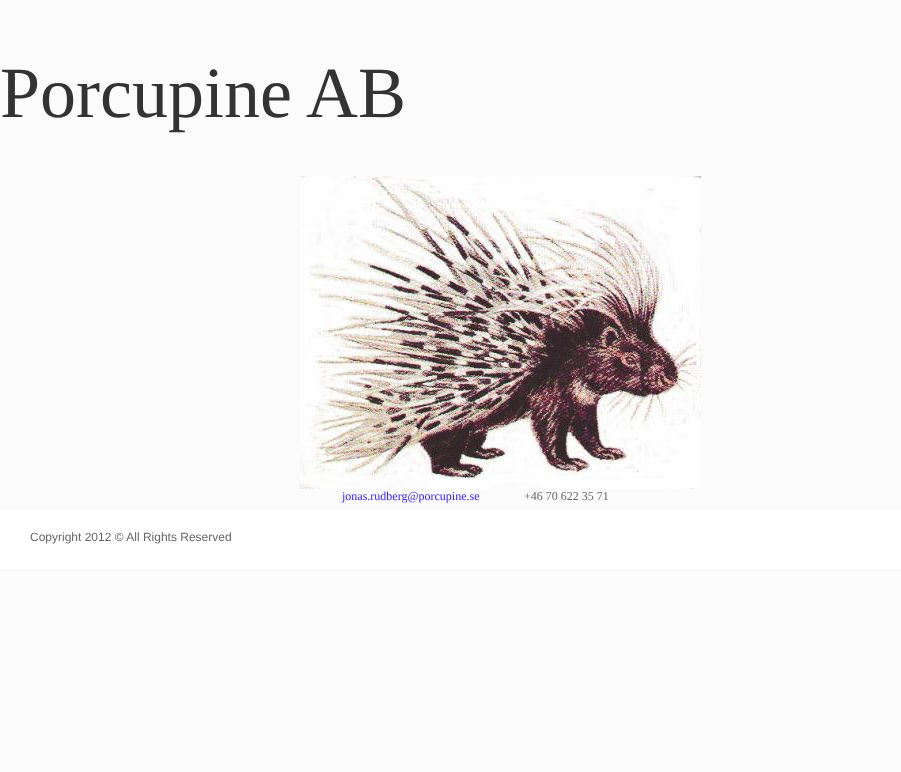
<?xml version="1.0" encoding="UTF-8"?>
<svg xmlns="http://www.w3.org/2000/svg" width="901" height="772">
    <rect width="100%" height="100%" fill="#FBFBFB"/>
    <text x="0" y="117" font-family="Liberation Serif" font-size="72" fill="#333333">Porcupine AB</text>
    <image x="300" y="176" width="401" height="313" href="img_01.png"/>
    <text x="342" y="500" font-family="Liberation Serif" font-size="12" fill="#3318EF">jonas.rudberg@porcupine.se</text>
    <text x="524" y="500" font-family="Liberation Serif" font-size="12" fill="#666666">+46 70 622 35 71</text>
    <rect x="0" y="509" width="901" height="60" fill="#FFFFFF"/>
    <text x="30" y="541" font-family="Liberation Sans" font-size="12" fill="#666666">Copyright 2012 © All Rights Reserved</text>
</svg>
